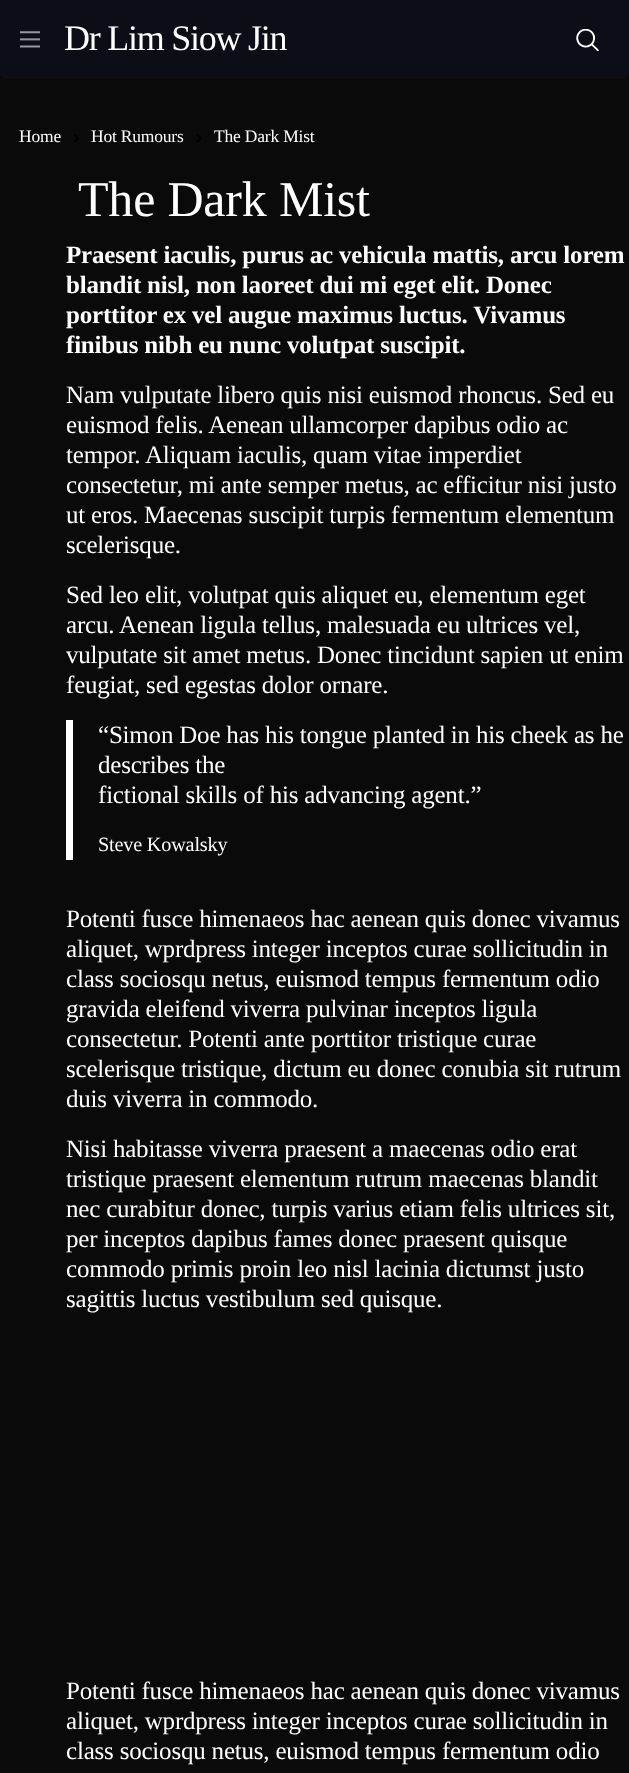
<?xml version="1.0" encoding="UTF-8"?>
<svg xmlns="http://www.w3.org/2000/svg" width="629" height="1773">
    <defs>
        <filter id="blur1" x="-50%" y="-200%" width="200%" height="500%"><feGaussianBlur stdDeviation="5"/></filter>
    </defs>
    <rect width="100%" height="100%" fill="#0A0A0A"/>
    <rect x="0" y="0" width="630" height="76" fill="#333333" fill-opacity="0.3" filter="url(#blur1)"/>
    <rect x="0" y="0" width="629" height="76" fill="#0C0E17"/>
    <image x="20" y="31" width="20" height="17" href="img_01.png"/>
    <text x="64" y="50" font-family="Liberation Serif" font-size="36" letter-spacing="-1.25" fill="#FFFFFF">Dr Lim Siow Jin</text>
    <image x="576" y="29" width="23" height="22" href="img_02.png"/>
    <text x="19" y="142" font-family="Liberation Serif" font-size="17.5" letter-spacing="-0.2" fill="#FFFFFF">Home</text>
    <image x="74" y="134" width="5" height="8" href="img_03.png"/>
    <text x="91" y="142" font-family="Liberation Serif" font-size="17.5" letter-spacing="-0.2" fill="#FFFFFF">Hot Rumours</text>
    <image x="196" y="134" width="5" height="8" href="img_04.png"/>
    <text x="214" y="142" font-family="Liberation Serif" font-size="17.5" letter-spacing="-0.2" fill="#FFFFFF">The Dark Mist</text>
    <text x="78" y="216" font-family="Liberation Serif" font-size="50" letter-spacing="-0.2" fill="#FFFFFF">The Dark Mist</text>
    <text font-family="Liberation Serif" font-size="25" font-weight="700" letter-spacing="-0.2" fill="#FFFFFF">
        <tspan x="66" y="263">Praesent iaculis, purus ac vehicula mattis, arcu lorem</tspan>
        <tspan x="66" y="293">blandit nisl, non laoreet dui mi eget elit. Donec</tspan>
        <tspan x="66" y="323">porttitor ex vel augue maximus luctus. Vivamus</tspan>
        <tspan x="66" y="353">finibus nibh eu nunc volutpat suscipit.</tspan>
    </text>
    <text font-family="Liberation Serif" font-size="25" letter-spacing="-0.2" fill="#FFFFFF">
        <tspan x="66" y="403">Nam vulputate libero quis nisi euismod rhoncus. Sed eu</tspan>
        <tspan x="66" y="433">euismod felis. Aenean ullamcorper dapibus odio ac</tspan>
        <tspan x="66" y="463">tempor. Aliquam iaculis, quam vitae imperdiet</tspan>
        <tspan x="66" y="493">consectetur, mi ante semper metus, ac efficitur nisi justo</tspan>
        <tspan x="66" y="523">ut eros. Maecenas suscipit turpis fermentum elementum</tspan>
        <tspan x="66" y="553">scelerisque.</tspan>
    </text>
    <text font-family="Liberation Serif" font-size="25" letter-spacing="-0.2" fill="#FFFFFF">
        <tspan x="66" y="603">Sed leo elit, volutpat quis aliquet eu, elementum eget</tspan>
        <tspan x="66" y="633">arcu. Aenean ligula tellus, malesuada eu ultrices vel,</tspan>
        <tspan x="66" y="663">vulputate sit amet metus. Donec tincidunt sapien ut enim</tspan>
        <tspan x="66" y="693">feugiat, sed egestas dolor ornare.</tspan>
    </text>
    <rect x="66" y="720" width="7" height="140" fill="#FFFFFF"/>
    <text font-family="Liberation Serif" font-size="25" letter-spacing="-0.2" fill="#FFFFFF">
        <tspan x="98" y="743">“Simon Doe has his tongue planted in his cheek as he</tspan>
        <tspan x="98" y="773">describes the</tspan>
        <tspan x="98" y="803">fictional skills of his advancing agent.”</tspan>
    </text>
    <text x="98" y="851" font-family="Liberation Serif" font-size="20.25" letter-spacing="-0.2" fill="#FFFFFF">Steve Kowalsky</text>
    <text font-family="Liberation Serif" font-size="25" letter-spacing="-0.2" fill="#FFFFFF">
        <tspan x="66" y="927">Potenti fusce himenaeos hac aenean quis donec vivamus</tspan>
        <tspan x="66" y="957">aliquet, wprdpress integer inceptos curae sollicitudin in</tspan>
        <tspan x="66" y="987">class sociosqu netus, euismod tempus fermentum odio</tspan>
        <tspan x="66" y="1017">gravida eleifend viverra pulvinar inceptos ligula</tspan>
        <tspan x="66" y="1047">consectetur. Potenti ante porttitor tristique curae</tspan>
        <tspan x="66" y="1077">scelerisque tristique, dictum eu donec conubia sit rutrum</tspan>
        <tspan x="66" y="1107">duis viverra in commodo.</tspan>
    </text>
    <text font-family="Liberation Serif" font-size="25" letter-spacing="-0.2" fill="#FFFFFF">
        <tspan x="66" y="1157">Nisi habitasse viverra praesent a maecenas odio erat</tspan>
        <tspan x="66" y="1187">tristique praesent elementum rutrum maecenas blandit</tspan>
        <tspan x="66" y="1217">nec curabitur donec, turpis varius etiam felis ultrices sit,</tspan>
        <tspan x="66" y="1247">per inceptos dapibus fames donec praesent quisque</tspan>
        <tspan x="66" y="1277">commodo primis proin leo nisl lacinia dictumst justo</tspan>
        <tspan x="66" y="1307">sagittis luctus vestibulum sed quisque.</tspan>
    </text>
    <text font-family="Liberation Serif" font-size="25" letter-spacing="-0.2" fill="#FFFFFF">
        <tspan x="66" y="1699">Potenti fusce himenaeos hac aenean quis donec vivamus</tspan>
        <tspan x="66" y="1729">aliquet, wprdpress integer inceptos curae sollicitudin in</tspan>
        <tspan x="66" y="1759">class sociosqu netus, euismod tempus fermentum odio</tspan>
    </text>
</svg>
